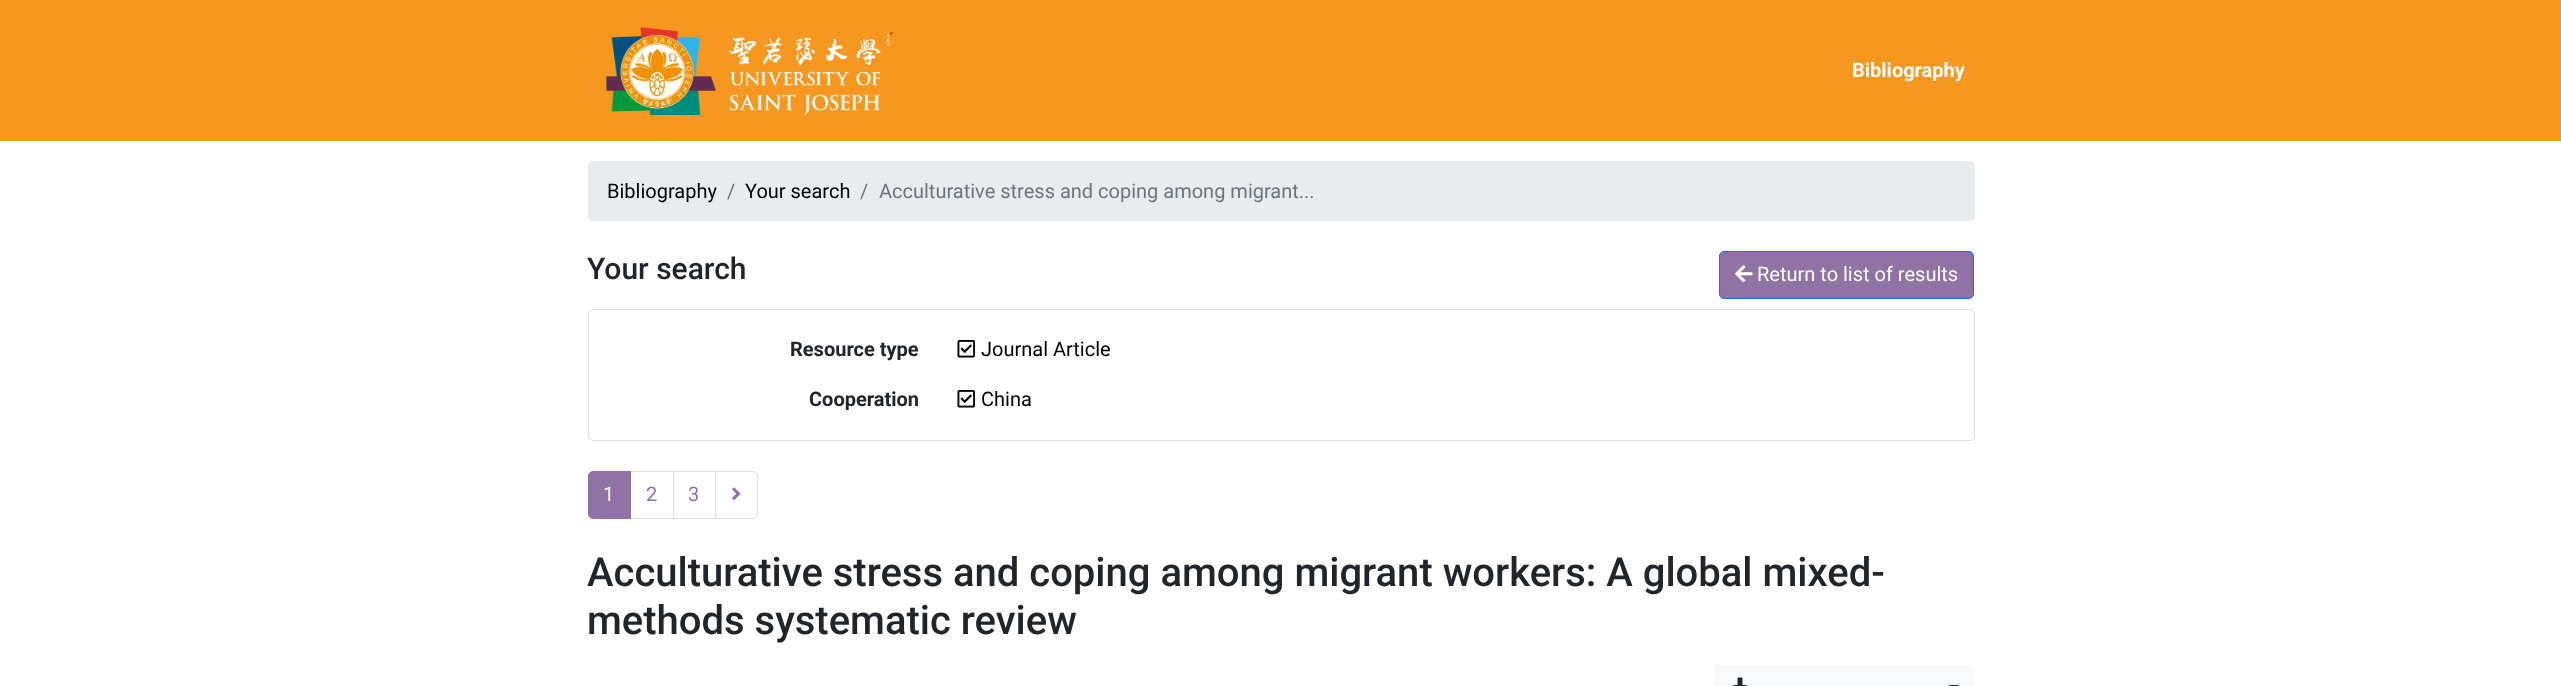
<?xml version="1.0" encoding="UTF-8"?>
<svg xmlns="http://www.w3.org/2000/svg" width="2561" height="686">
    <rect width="100%" height="100%" fill="#FFFFFF"/>
    <rect x="0" y="0" width="2561" height="141" fill="#F6971F"/>
    <image x="606" y="27" width="287" height="88" href="img_01.png"/>
    <text x="1852" y="77" font-family="Roboto" font-size="20" font-weight="700" fill="#FFFFFF">Bibliography</text>
    <rect x="588" y="161" width="1387" height="60" rx="5" fill="#E9ECEF"/>
    <text x="607" y="198" font-family="Roboto" font-size="20" fill="#000000">Bibliography</text>
    <text x="727" y="198" font-family="Roboto" font-size="20" fill="#6C757D">/</text>
    <text x="745" y="198" font-family="Roboto" font-size="20" fill="#000000">Your search</text>
    <text x="860" y="198" font-family="Roboto" font-size="20" fill="#6C757D">/</text>
    <text x="879" y="198" font-family="Roboto" font-size="20" fill="#6C757D">Acculturative stress and coping among migrant...</text>
    <text x="587" y="279" font-family="Roboto" font-size="30" font-weight="500" fill="#212529">Your search</text>
    <rect x="1719.5" y="251.5" width="254" height="47" rx="4.5" fill="#9072A4" stroke="#007BFF"/>
    <image x="1735" y="265" width="18" height="18" href="img_02.png"/>
    <text x="1757" y="281" font-family="Roboto" font-size="20" fill="#FFFFFF">Return to list of results</text>
    <rect x="588.5" y="309.5" width="1386" height="131" rx="4.5" fill="none" stroke="#DFDFDF"/>
    <text x="790" y="356" font-family="Roboto" font-size="20" font-weight="700" fill="#212529">Resource type</text>
    <image x="957" y="340" width="18" height="18" href="img_03.png"/>
    <text x="981" y="356" font-family="Roboto" font-size="20" fill="#000000">Journal Article</text>
    <text x="809" y="406" font-family="Roboto" font-size="20" font-weight="700" fill="#212529">Cooperation</text>
    <image x="957" y="390" width="18" height="18" href="img_03.png"/>
    <text x="981" y="406" font-family="Roboto" font-size="20" fill="#000000">China</text>
    <rect x="630.5" y="471.5" width="43" height="47" fill="none" stroke="#DEE2E6"/>
    <path d="M 593 471.5 H 630.5 V 518.5 H 593 C 590.5 518.5 588.5 516.5 588.5 514 V 476 C 588.5 473.5 590.5 471.5 593 471.5 Z" fill="#9072A4" stroke="#9072A4"/>
    <text x="603" y="501" font-family="Roboto" font-size="20" fill="#FFFFFF">1</text>
    <text x="646" y="501" font-family="Roboto" font-size="20" fill="#9072A4">2</text>
    <rect x="673.5" y="471.5" width="42" height="47" fill="none" stroke="#DEE2E6"/>
    <text x="688" y="501" font-family="Roboto" font-size="20" fill="#9072A4">3</text>
    <path d="M 715.5 471.5 H 753 C 755.5 471.5 757.5 473.5 757.5 476 V 514 C 757.5 516.5 755.5 518.5 753 518.5 H 715.5 Z" fill="#FFFFFF" stroke="#DEE2E6"/>
    <image x="732" y="487" width="9" height="13" href="img_04.png"/>
    <text font-family="Roboto" font-size="40" font-weight="500" fill="#212529">
        <tspan x="587" y="586">Acculturative stress and coping among migrant workers: A global mixed-</tspan>
        <tspan x="587" y="634">methods systematic review</tspan>
    </text>
    <rect x="1714" y="665" width="261" height="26" rx="5" fill="#F8F9FA"/>
    <image x="1733" y="677" width="14" height="9" href="img_05.png"/>
    <path d="M 1949 685 H 1959 L 1954 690 Z" fill="#212529"/>
</svg>
